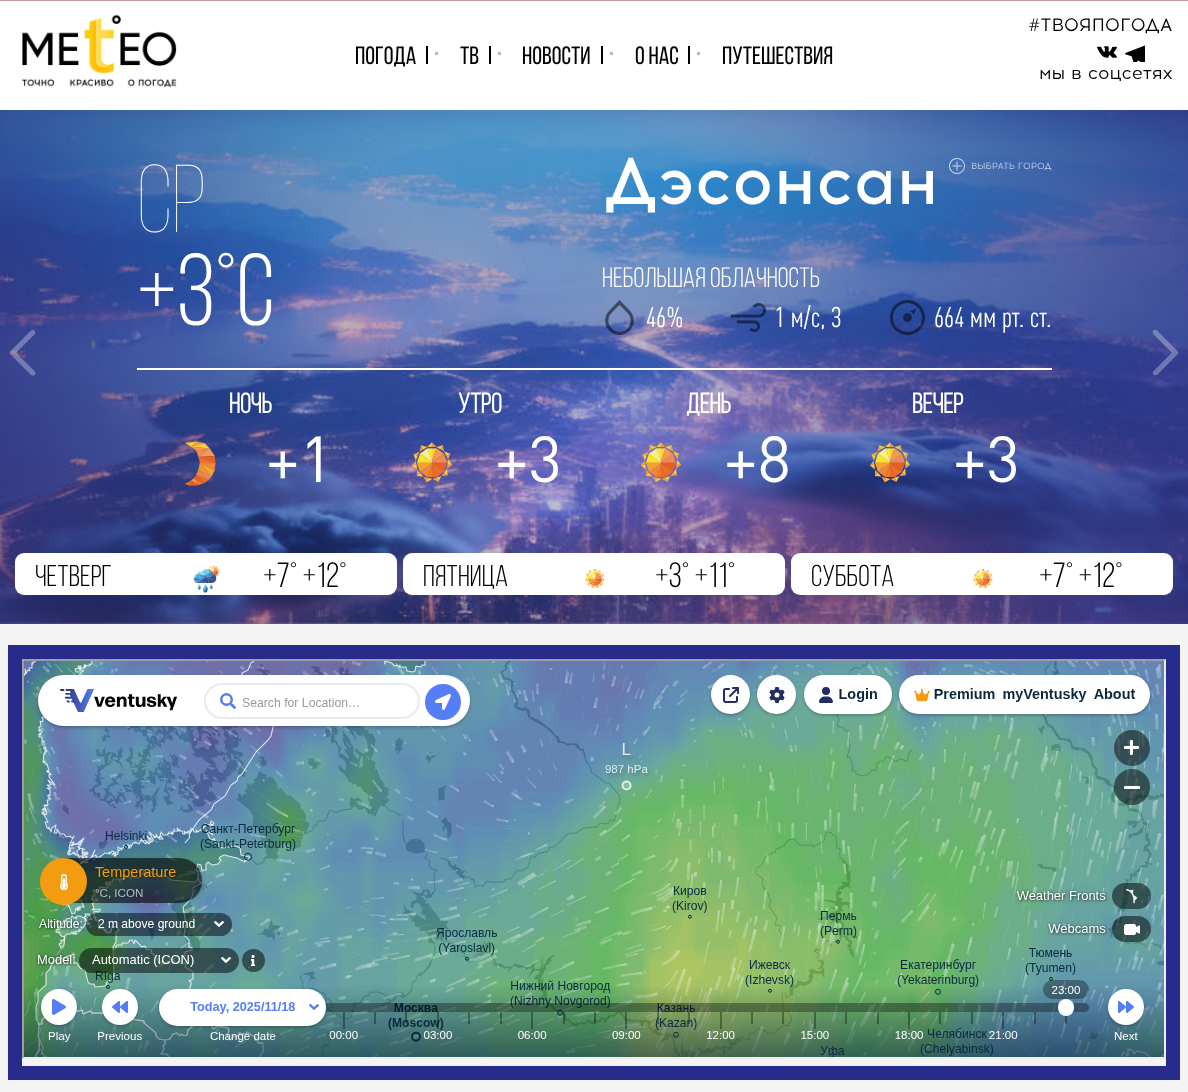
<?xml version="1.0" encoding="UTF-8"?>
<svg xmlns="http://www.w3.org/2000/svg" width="1188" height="1092">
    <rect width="100%" height="100%" fill="#FFFFFF"/>
    <rect x="0" y="0" width="1188" height="1" fill="#C69E9F"/>
    <image x="22" y="14" width="155" height="74" href="img_01.png"/>
    <text x="355" y="64" font-family="'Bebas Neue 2'" font-size="25" fill="#000000">ПОГОДА</text>
    <rect x="426" y="46" width="2" height="18" fill="#000000"/>
    <rect x="435" y="52" width="3" height="3" fill="#B8B8B8"/>
    <text x="460" y="64" font-family="'Bebas Neue 2'" font-size="25" fill="#000000">ТВ</text>
    <rect x="489" y="46" width="2" height="18" fill="#000000"/>
    <rect x="498" y="52" width="3" height="3" fill="#B8B8B8"/>
    <text x="522" y="64" font-family="'Bebas Neue 2'" font-size="25" fill="#000000">НОВОСТИ</text>
    <rect x="601" y="46" width="2" height="18" fill="#000000"/>
    <rect x="610" y="52" width="3" height="3" fill="#B8B8B8"/>
    <text x="635" y="64" font-family="'Bebas Neue 2'" font-size="25" fill="#000000">О НАС</text>
    <rect x="688" y="46" width="2" height="18" fill="#000000"/>
    <rect x="697" y="52" width="3" height="3" fill="#B8B8B8"/>
    <text x="722" y="64" font-family="'Bebas Neue 2'" font-size="25" fill="#000000">ПУТЕШЕСТВИЯ</text>
    <text x="1028" y="31" font-family="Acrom" font-size="18" fill="#000000">#ТВОЯПОГОДА</text>
    <image x="1097" y="46" width="20" height="12" href="img_02.png"/>
    <image x="1125" y="45" width="20" height="17" href="img_03.png"/>
    <text x="1039" y="79" font-family="Acrom" font-size="18" fill="#000000">мы в соцсетях</text>
    <image x="0" y="110" width="1188" height="514" href="img_05.png"/>
    <text x="604" y="204" font-family="Acrom" font-size="66" font-weight="500" fill="#FFFFFF">Дэсонсан</text>
    <image x="949" y="158" width="16" height="16" href="img_04.png"/>
    <text x="971" y="169" font-family="Acrom" font-size="9" fill="#C6D2E6">ВЫБРАТЬ ГОРОД</text>
    <text x="137" y="232" font-family="Bebas Neue" font-size="96" font-weight="100" fill="#FFFFFF">Ср</text>
    <text x="137" y="325" font-family="Bebas Neue" font-size="102" fill="#FFFFFF">+3°С</text>
    <text x="602" y="287" font-family="Bebas Neue" font-size="28" fill="#FFFFFF">небольшая облачность</text>
    <image x="605" y="300" width="29" height="35" href="img_06.png"/>
    <text x="646" y="327" font-family="DIN" font-size="28" fill="#FFFFFF">46%</text>
    <image x="731" y="302" width="35" height="30" href="img_07.png"/>
    <text x="775" y="327" font-family="DIN" font-size="28" fill="#FFFFFF">1 м/с, З</text>
    <image x="890" y="300" width="35" height="35" href="img_08.png"/>
    <text x="934" y="327" font-family="DIN" font-size="28" fill="#FFFFFF">664 мм рт. ст.</text>
    <rect x="137" y="368" width="915" height="2" fill="#FFFFFF"/>
    <text x="229" y="413" font-family="Bebas Neue" font-size="28" font-weight="700" fill="#FFFFFF">Ночь</text>
    <image x="185" y="441" width="31" height="45" href="img_09.png"/>
    <text x="266" y="482" font-family="'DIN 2'" font-size="64" fill="#FFFFFF">+1</text>
    <text x="458" y="413" font-family="Bebas Neue" font-size="28" font-weight="700" fill="#FFFFFF">Утро</text>
    <image x="412" y="442" width="40" height="41" href="img_10.png"/>
    <text x="495" y="482" font-family="'DIN 2'" font-size="64" fill="#FFFFFF">+3</text>
    <text x="686" y="413" font-family="Bebas Neue" font-size="28" font-weight="700" fill="#FFFFFF">День</text>
    <image x="641" y="442" width="40" height="41" href="img_11.png"/>
    <text x="724" y="482" font-family="'DIN 2'" font-size="64" fill="#FFFFFF">+8</text>
    <text x="912" y="413" font-family="Bebas Neue" font-size="28" font-weight="700" fill="#FFFFFF">Вечер</text>
    <image x="870" y="442" width="40" height="41" href="img_12.png"/>
    <text x="953" y="482" font-family="'DIN 2'" font-size="64" fill="#FFFFFF">+3</text>
    <image x="10" y="330" width="26" height="46" href="img_13.png"/>
    <image x="1152" y="330" width="26" height="46" href="img_14.png"/>
    <rect x="15" y="553" width="382" height="42" rx="9" fill="#FFFFFF"/>
    <text x="35" y="586" font-family="Bebas Neue" font-size="30" fill="#000000">Четверг</text>
    <image x="193" y="565" width="27" height="28" href="img_15.png"/>
    <text x="263" y="587" font-family="Bebas Neue" font-size="35" fill="#000000">+7° +12°</text>
    <rect x="403" y="553" width="382" height="42" rx="9" fill="#FFFFFF"/>
    <text x="423" y="586" font-family="Bebas Neue" font-size="30" fill="#000000">Пятница</text>
    <image x="585" y="569" width="20" height="20" href="img_16.png"/>
    <text x="655" y="587" font-family="Bebas Neue" font-size="35" fill="#000000">+3° +11°</text>
    <rect x="791" y="553" width="382" height="42" rx="9" fill="#FFFFFF"/>
    <text x="811" y="586" font-family="Bebas Neue" font-size="30" fill="#000000">Суббота</text>
    <image x="973" y="569" width="20" height="20" href="img_16.png"/>
    <text x="1039" y="587" font-family="Bebas Neue" font-size="35" fill="#000000">+7° +12°</text>
    <rect x="0" y="624" width="1188" height="468" fill="#F4F4F4"/>
    <rect x="15" y="652" width="1158" height="421" fill="none" stroke="#262B8C" stroke-width="14"/>
    <path d="M 22 659 H 1166 L 1164 661 H 24 Z" fill="#9F9F9F"/>
    <path d="M 1166 659 V 1059 L 1164 1057 V 661 Z" fill="#EEEEEE"/>
    <path d="M 1166 1059 H 22 L 24 1057 H 1164 Z" fill="#EEEEEE"/>
    <path d="M 22 1059 V 659 L 24 661 V 1057 Z" fill="#9F9F9F"/>
    <image x="24" y="661" width="1140" height="396" href="img_17.png"/>
</svg>
